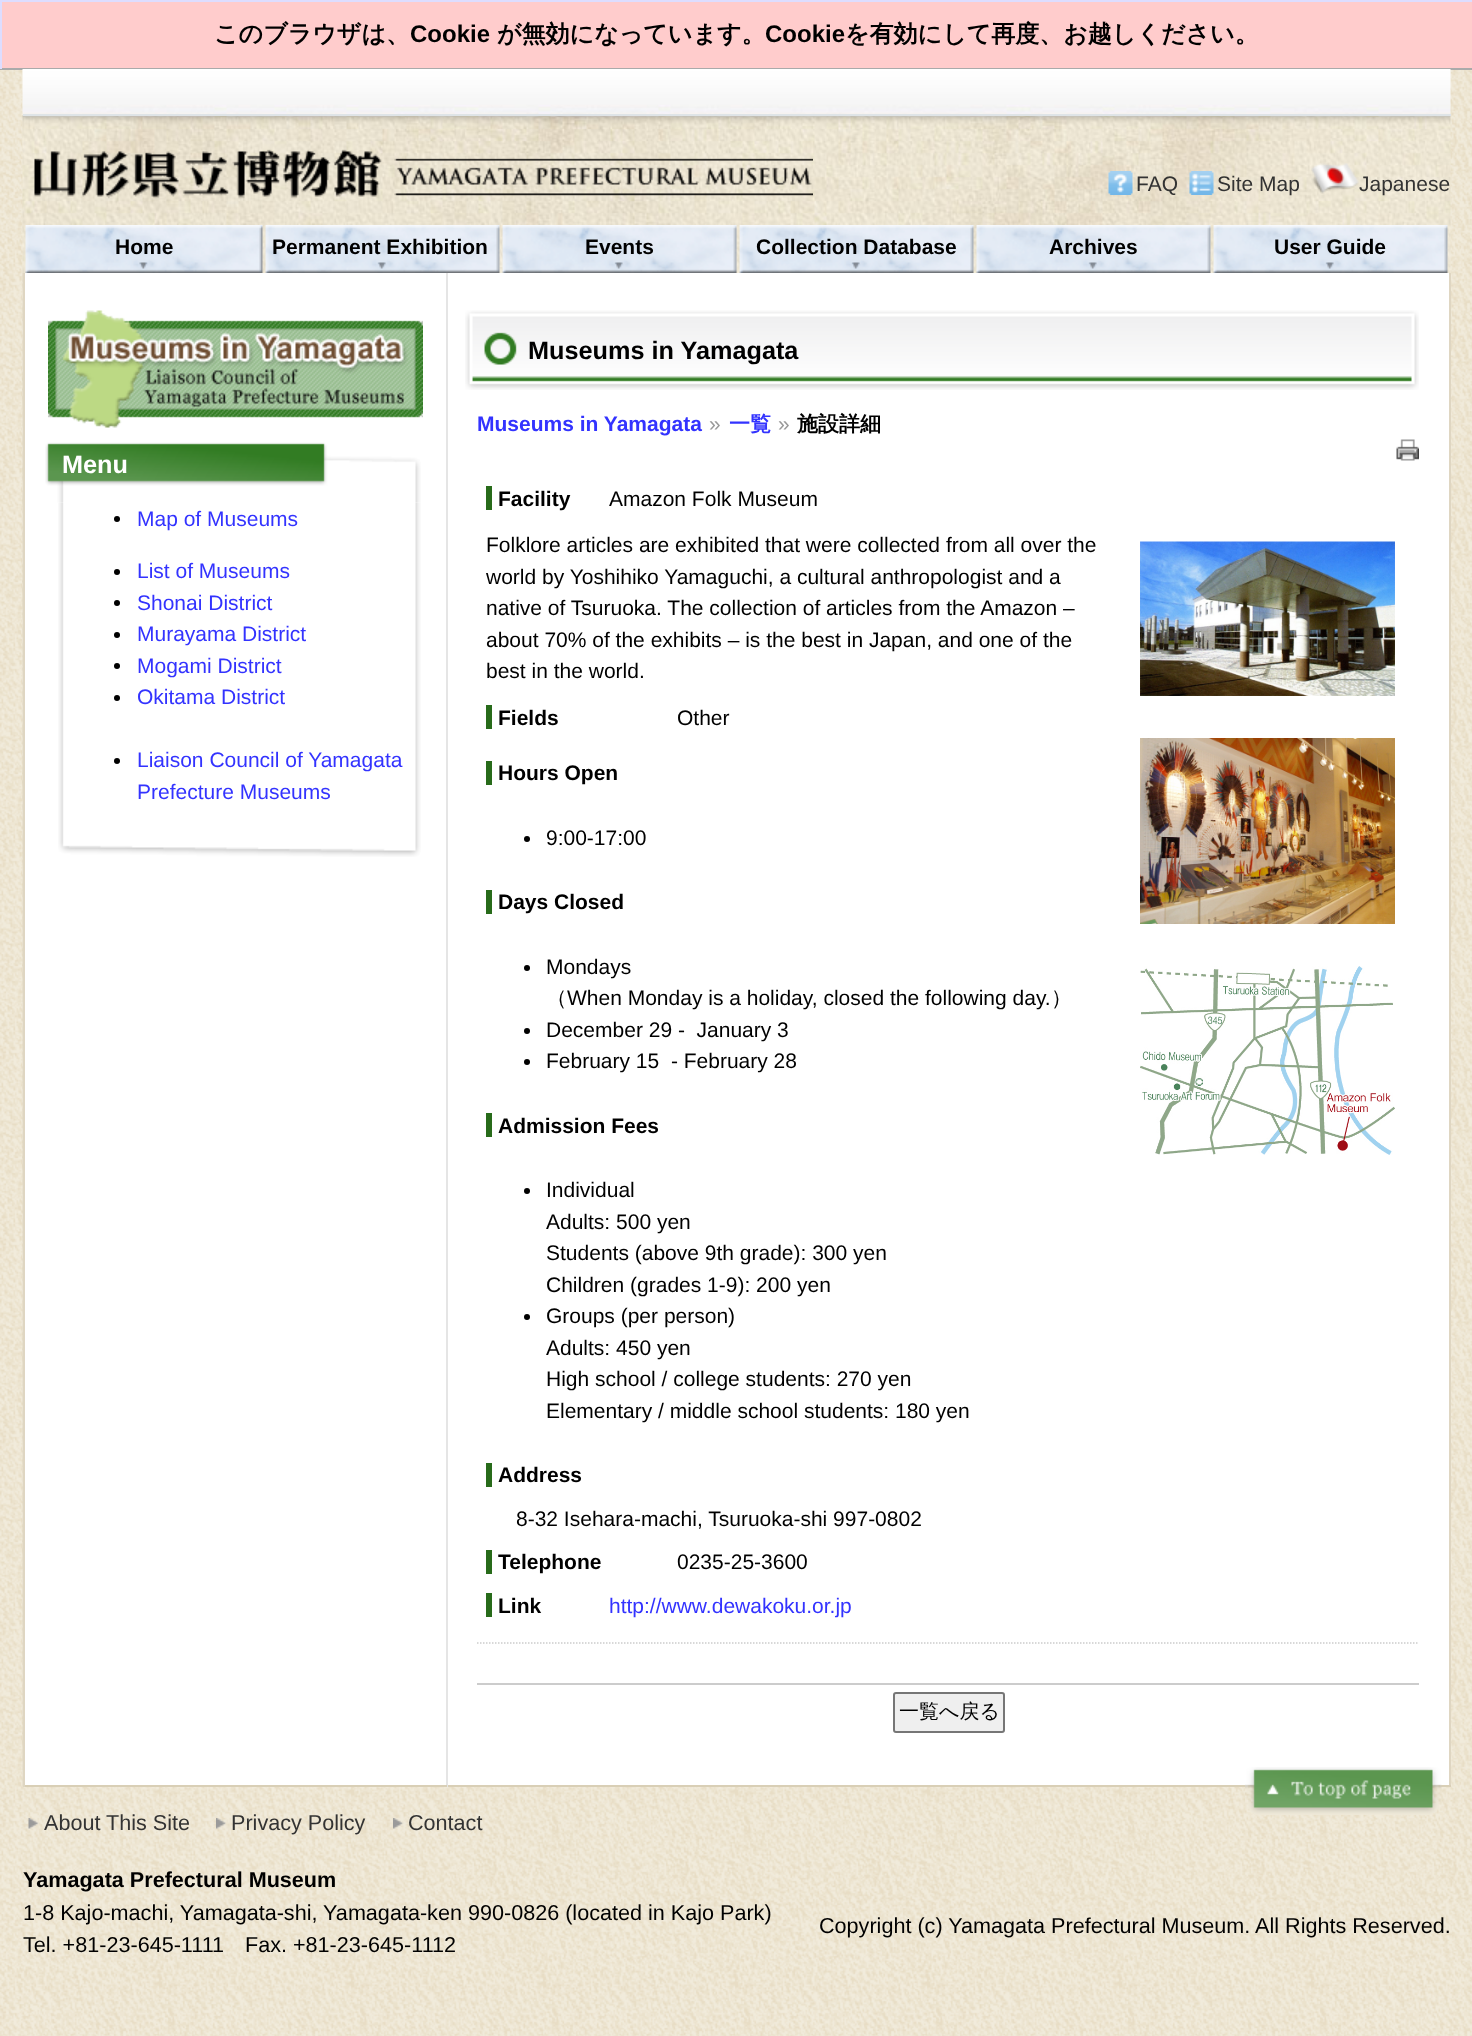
<?xml version="1.0" encoding="UTF-8"?>
<svg xmlns="http://www.w3.org/2000/svg" width="1472" height="2036">
    <rect width="100%" height="100%" fill="#FFFFFF"/>
    <image x="0" y="70" width="1472" height="1966" href="img_01.png"/>
    <rect x="2" y="2" width="1470" height="66" fill="#FFCCCC"/>
    <rect x="0" y="0" width="1472" height="2" fill="#DDDDFF"/>
    <rect x="0" y="68" width="1472" height="2" fill="#AAAAAA"/>
    <rect x="0" y="0" width="2" height="69" fill="#DDDDFF"/>
    <text x="214" y="42" font-family="WenQuanYi Zen Hei" font-size="24" font-weight="700" fill="#000000">このブラウザは、</text>
    <text x="410" y="42" font-family="Liberation Sans" font-size="24" font-weight="700" fill="#000000">Cookie</text>
    <text x="497" y="42" font-family="WenQuanYi Zen Hei" font-size="24" font-weight="700" fill="#000000">が無効になっています。</text>
    <text x="765" y="42" font-family="Liberation Sans" font-size="24" font-weight="700" fill="#000000">Cookie</text>
    <text x="845" y="42" font-family="WenQuanYi Zen Hei" font-size="24" font-weight="700" fill="#000000">を有効にして再度、お越しください。</text>
    <image x="22" y="69" width="1429" height="740" href="img_02.png"/>
    <rect x="23" y="114" width="1428" height="2" fill="#DFE4E7"/>
    <image x="34" y="149" width="779" height="50" href="img_03.png"/>
    <image x="1108" y="171" width="25" height="24" href="img_04.png"/>
    <text x="1136" y="191" font-family="Liberation Sans" font-size="21" fill="#333333">FAQ</text>
    <image x="1189" y="171" width="25" height="24" href="img_05.png"/>
    <text x="1217" y="191" font-family="Liberation Sans" font-size="21" fill="#333333">Site Map</text>
    <image x="1311" y="163" width="48" height="31" href="img_06.png"/>
    <text x="1359" y="191" font-family="Liberation Sans" font-size="21" fill="#333333">Japanese</text>
    <image x="25" y="225" width="238" height="48" href="img_07.png"/>
    <text x="115" y="254" font-family="Liberation Sans" font-size="21" font-weight="700" fill="#000000">Home</text>
    <image x="265" y="225" width="235" height="48" href="img_08.png"/>
    <text x="272" y="254" font-family="Liberation Sans" font-size="21" font-weight="700" fill="#000000">Permanent Exhibition</text>
    <image x="502" y="225" width="235" height="48" href="img_09.png"/>
    <text x="585" y="254" font-family="Liberation Sans" font-size="21" font-weight="700" fill="#000000">Events</text>
    <image x="739" y="225" width="235" height="48" href="img_10.png"/>
    <text x="756" y="254" font-family="Liberation Sans" font-size="21" font-weight="700" fill="#000000">Collection Database</text>
    <image x="976" y="225" width="235" height="48" href="img_11.png"/>
    <text x="1049" y="254" font-family="Liberation Sans" font-size="21" font-weight="700" fill="#000000">Archives</text>
    <image x="1213" y="225" width="235" height="48" href="img_12.png"/>
    <text x="1274" y="254" font-family="Liberation Sans" font-size="21" font-weight="700" fill="#000000">User Guide</text>
    <image x="22" y="273" width="1" height="1514" href="img_13.png"/>
    <rect x="25" y="273" width="421" height="1512" fill="#FFFFFF"/>
    <rect x="1449" y="273" width="2" height="1514" fill="#DFD6C2"/>
    <rect x="446" y="1785" width="1005" height="2" fill="#D9CFB6"/>
    <rect x="446" y="273" width="2" height="1514" fill="#E5E5E5"/>
    <rect x="23" y="1785" width="424" height="2" fill="#D9CFB6"/>
    <rect x="23" y="273" width="2" height="1514" fill="#DFD6C2"/>
    <image x="48" y="310" width="375" height="118" href="img_14.png"/>
    <image x="45" y="442" width="376" height="61" href="img_15.png"/>
    <text x="62" y="473" font-family="Liberation Sans" font-size="25.25" font-weight="700" fill="#FFFFFF">Menu</text>
    <image x="58" y="502" width="363" height="355" href="img_16.png"/>
    <circle cx="117" cy="519" r="3" fill="#000000"/>
    <text x="137" y="526" font-family="Liberation Sans" font-size="21" fill="#3333FF">Map of Museums</text>
    <circle cx="117" cy="572" r="3" fill="#000000"/>
    <text x="137" y="578" font-family="Liberation Sans" font-size="21" fill="#3333FF">List of Museums</text>
    <circle cx="117" cy="603" r="3" fill="#000000"/>
    <text x="137" y="610" font-family="Liberation Sans" font-size="21" fill="#3333FF">Shonai District</text>
    <circle cx="117" cy="635" r="3" fill="#000000"/>
    <text x="137" y="641" font-family="Liberation Sans" font-size="21" fill="#3333FF">Murayama District</text>
    <circle cx="117" cy="666" r="3" fill="#000000"/>
    <text x="137" y="673" font-family="Liberation Sans" font-size="21" fill="#3333FF">Mogami District</text>
    <circle cx="117" cy="698" r="3" fill="#000000"/>
    <text x="137" y="704" font-family="Liberation Sans" font-size="21" fill="#3333FF">Okitama District</text>
    <circle cx="117" cy="761" r="3" fill="#000000"/>
    <text font-family="Liberation Sans" font-size="21" fill="#3333FF">
        <tspan x="137" y="767">Liaison Council of Yamagata</tspan>
        <tspan x="137" y="799">Prefecture Museums</tspan>
    </text>
    <rect x="448" y="273" width="1001" height="1512" fill="#FFFFFF"/>
    <image x="465" y="310" width="954" height="80" href="img_17.png"/>
    <text x="528" y="359" font-family="Liberation Sans" font-size="25.25" font-weight="700" fill="#000000">Museums in Yamagata</text>
    <text x="477" y="431" font-family="Liberation Sans" font-size="21" font-weight="700" fill="#3333FF">Museums in Yamagata</text>
    <text x="709" y="431" font-family="Liberation Sans" font-size="21" fill="#999999">»</text>
    <text x="729" y="431" font-family="WenQuanYi Zen Hei" font-size="21" font-weight="700" fill="#3333FF">一覧</text>
    <text x="778" y="431" font-family="Liberation Sans" font-size="21" fill="#999999">»</text>
    <text x="797" y="431" font-family="WenQuanYi Zen Hei" font-size="21" font-weight="700" fill="#000000">施設詳細</text>
    <image x="1396" y="439" width="23" height="22" href="img_18.png"/>
    <text x="498" y="506" font-family="Liberation Sans" font-size="21" font-weight="700" fill="#000000">Facility</text>
    <rect x="486" y="486" width="6" height="24" fill="#286B1A"/>
    <text x="609" y="506" font-family="Liberation Sans" font-size="21" fill="#000000">Amazon Folk Museum</text>
    <text font-family="Liberation Sans" font-size="21" fill="#000000">
        <tspan x="486" y="552">Folklore articles are exhibited that were collected from all over the</tspan>
        <tspan x="486" y="584">world by Yoshihiko Yamaguchi, a cultural anthropologist and a</tspan>
        <tspan x="486" y="615">native of Tsuruoka. The collection of articles from the Amazon –</tspan>
        <tspan x="486" y="647">about 70% of the exhibits – is the best in Japan, and one of the</tspan>
        <tspan x="486" y="678">best in the world.</tspan>
    </text>
    <text x="498" y="725" font-family="Liberation Sans" font-size="21" font-weight="700" fill="#000000">Fields</text>
    <rect x="486" y="705" width="6" height="24" fill="#286B1A"/>
    <text x="677" y="725" font-family="Liberation Sans" font-size="21" fill="#000000">Other</text>
    <text x="498" y="780" font-family="Liberation Sans" font-size="21" font-weight="700" fill="#000000">Hours Open</text>
    <rect x="486" y="761" width="6" height="24" fill="#286B1A"/>
    <circle cx="527" cy="839" r="3" fill="#000000"/>
    <text x="546" y="845" font-family="Liberation Sans" font-size="21" fill="#000000">9:00-17:00</text>
    <text x="498" y="909" font-family="Liberation Sans" font-size="21" font-weight="700" fill="#000000">Days Closed</text>
    <rect x="486" y="890" width="6" height="24" fill="#286B1A"/>
    <circle cx="527" cy="968" r="3" fill="#000000"/>
    <text x="546" y="974" font-family="Liberation Sans" font-size="21" fill="#000000">Mondays</text>
    <text x="546" y="1005" font-family="WenQuanYi Zen Hei" font-size="21" font-weight="500" fill="#000000">（</text>
    <text x="567" y="1005" font-family="Liberation Sans" font-size="21" fill="#000000">When Monday is a holiday, closed the following day.</text>
    <text x="1051" y="1005" font-family="WenQuanYi Zen Hei" font-size="21" font-weight="500" fill="#000000">）</text>
    <circle cx="527" cy="1031" r="3" fill="#000000"/>
    <text x="546" y="1037" font-family="Liberation Sans" font-size="21" fill="#000000" xml:space="preserve">December 29 -  January 3</text>
    <circle cx="527" cy="1062" r="3" fill="#000000"/>
    <text x="546" y="1068" font-family="Liberation Sans" font-size="21" fill="#000000" xml:space="preserve">February 15  - February 28</text>
    <text x="498" y="1133" font-family="Liberation Sans" font-size="21" font-weight="700" fill="#000000">Admission Fees</text>
    <rect x="486" y="1113" width="6" height="24" fill="#286B1A"/>
    <circle cx="527" cy="1191" r="3" fill="#000000"/>
    <text font-family="Liberation Sans" font-size="21" fill="#000000">
        <tspan x="546" y="1197">Individual</tspan>
        <tspan x="546" y="1229">Adults: 500 yen</tspan>
        <tspan x="546" y="1260">Students (above 9th grade): 300 yen</tspan>
        <tspan x="546" y="1292">Children (grades 1-9): 200 yen</tspan>
    </text>
    <circle cx="527" cy="1317" r="3" fill="#000000"/>
    <text font-family="Liberation Sans" font-size="21" fill="#000000">
        <tspan x="546" y="1323">Groups (per person)</tspan>
        <tspan x="546" y="1355">Adults: 450 yen</tspan>
        <tspan x="546" y="1386">High school / college students: 270 yen</tspan>
        <tspan x="546" y="1418">Elementary / middle school students: 180 yen</tspan>
    </text>
    <text x="498" y="1482" font-family="Liberation Sans" font-size="21" font-weight="700" fill="#000000">Address</text>
    <rect x="486" y="1463" width="6" height="24" fill="#286B1A"/>
    <text x="516" y="1526" font-family="Liberation Sans" font-size="21" fill="#000000">8-32 Isehara-machi, Tsuruoka-shi 997-0802</text>
    <text x="498" y="1569" font-family="Liberation Sans" font-size="21" font-weight="700" fill="#000000">Telephone</text>
    <rect x="486" y="1550" width="6" height="24" fill="#286B1A"/>
    <text x="677" y="1569" font-family="Liberation Sans" font-size="21" fill="#000000">0235-25-3600</text>
    <image x="1140" y="541" width="255" height="155" href="img_19.png"/>
    <image x="1140" y="738" width="255" height="186" href="img_20.png"/>
    <image x="1140" y="966" width="255" height="189" href="img_21.png"/>
    <text x="498" y="1613" font-family="Liberation Sans" font-size="21" font-weight="700" fill="#000000">Link</text>
    <rect x="486" y="1593" width="6" height="24" fill="#286B1A"/>
    <text x="609" y="1613" font-family="Liberation Sans" font-size="21" fill="#3333FF">http://www.dewakoku.or.jp</text>
    <path d="M 477 1643 H 1419" fill="none" stroke="#CCCCCC" stroke-width="1.5" stroke-dasharray="1.5 1.5"/>
    <rect x="477" y="1683" width="942" height="2" fill="#CCCCCC"/>
    <rect x="894" y="1693" width="110" height="39" rx="2" fill="#EFEFEF" stroke="#767676" stroke-width="2"/>
    <text x="899" y="1718" font-family="WenQuanYi Zen Hei" font-size="20" font-weight="500" fill="#000000">一覧へ戻る</text>
    <image x="1245" y="1767" width="197" height="48" href="img_22.png"/>
    <image x="28" y="1818" width="11" height="11" href="img_23.png"/>
    <text x="44" y="1830" font-family="Liberation Sans" font-size="21.6" fill="#333333">About This Site</text>
    <image x="216" y="1818" width="10" height="11" href="img_24.png"/>
    <text x="231" y="1830" font-family="Liberation Sans" font-size="21.6" fill="#333333">Privacy Policy</text>
    <image x="393" y="1818" width="11" height="11" href="img_25.png"/>
    <text x="408" y="1830" font-family="Liberation Sans" font-size="21.6" fill="#333333">Contact</text>
    <text x="23" y="1887" font-family="Liberation Sans" font-size="21.6" font-weight="700" fill="#000000">Yamagata Prefectural Museum</text>
    <text font-family="Liberation Sans" font-size="21.6" fill="#000000">
        <tspan x="23" y="1920">1-8 Kajo-machi, Yamagata-shi, Yamagata-ken 990-0826 (located in Kajo Park)</tspan>
        <tspan x="23" y="1952">Tel. +81-23-645-1111</tspan>
    </text>
    <text x="245" y="1952" font-family="Liberation Sans" font-size="21.6" fill="#000000">Fax. +81-23-645-1112</text>
    <text x="819" y="1933" font-family="Liberation Sans" font-size="21.6" fill="#000000">Copyright (c) Yamagata Prefectural Museum. All Rights Reserved.</text>
</svg>
